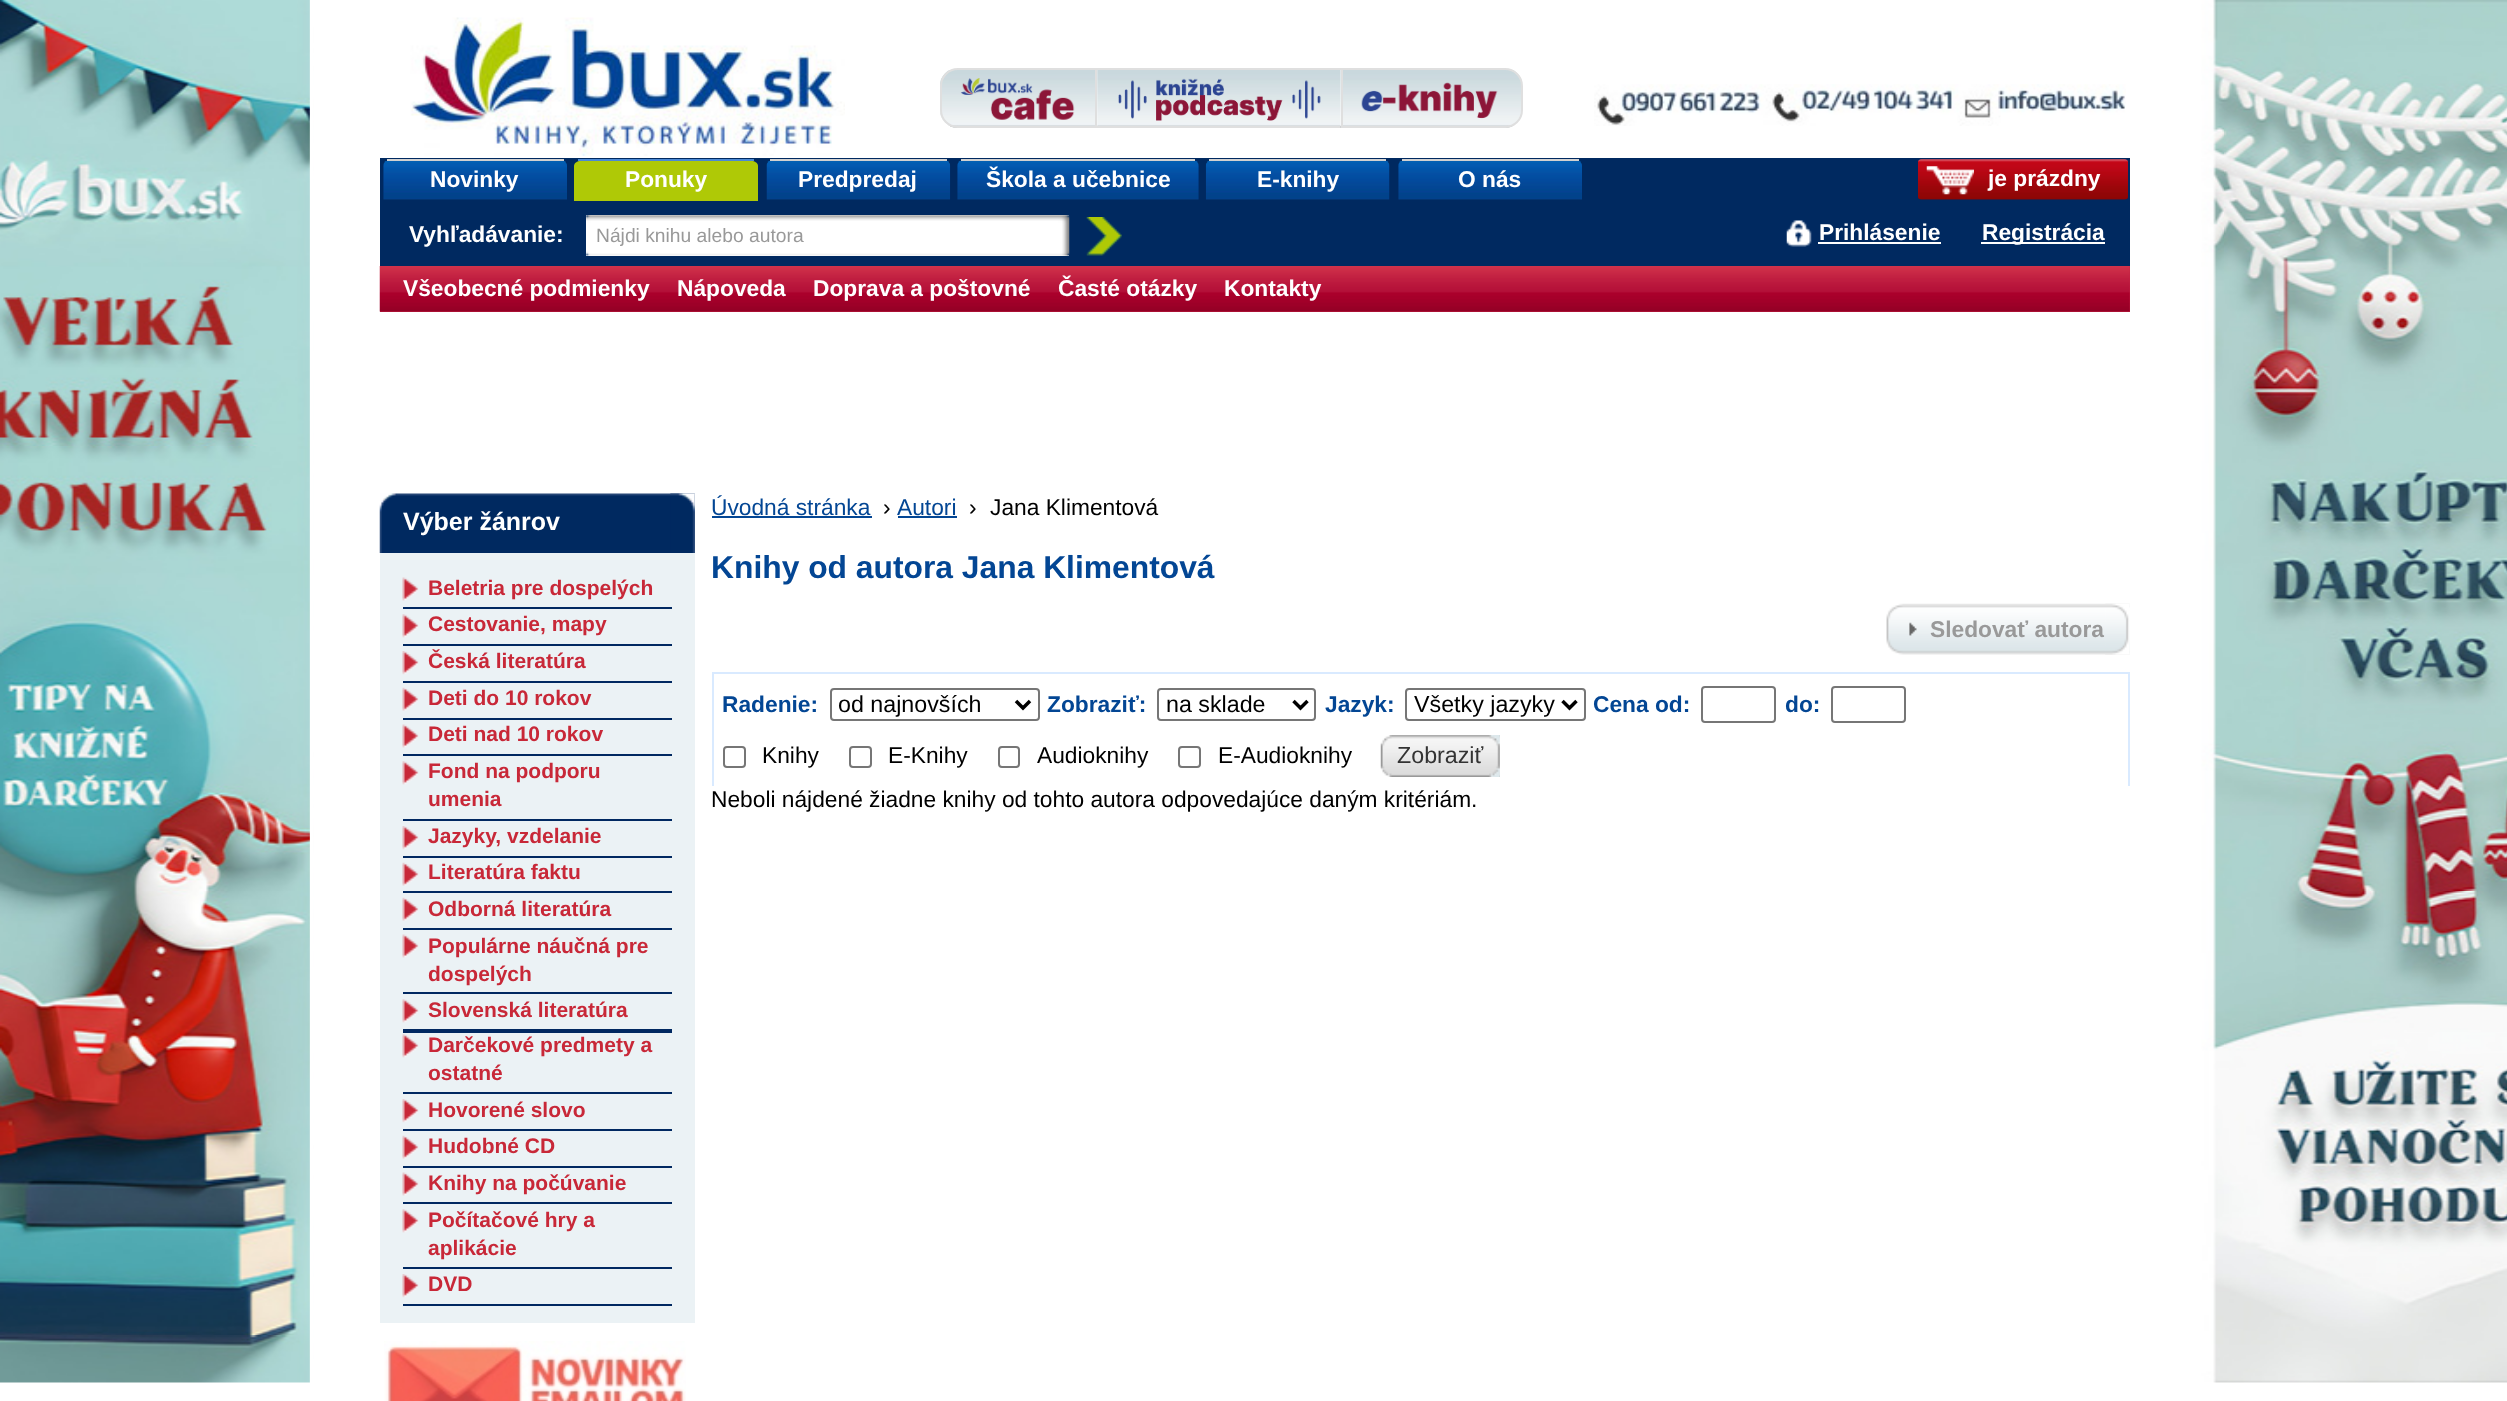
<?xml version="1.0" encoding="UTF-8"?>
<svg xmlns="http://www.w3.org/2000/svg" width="2507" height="1401">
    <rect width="100%" height="100%" fill="#FFFFFF"/>
    <image x="0" y="0" width="2507" height="1383" href="img_01.png"/>
    <rect x="310" y="0" width="3" height="1383" fill="#FFFFFF"/>
    <image x="397" y="17" width="448" height="139" href="img_02.png"/>
    <image x="940" y="70" width="158" height="58" href="img_03.png"/>
    <path d="M 958 69 H 1096 V 127 H 958 C 948.5 127 941 119.5 941 110 V 86 C 941 76.5 948.5 69 958 69 Z" fill="none" stroke="#DFDFDF" stroke-width="2"/>
    <image x="960" y="78" width="115" height="42" href="img_04.png"/>
    <image x="1097" y="70" width="244" height="56" href="img_05.png"/>
    <rect x="1097" y="68" width="244" height="2" fill="#DFDFDF"/>
    <rect x="1097" y="126" width="244" height="2" fill="#DFDFDF"/>
    <image x="1118" y="78" width="203" height="43" href="img_06.png"/>
    <image x="1340" y="70" width="183" height="58" href="img_07.png"/>
    <path d="M 1342 69 H 1505 C 1514.5 69 1522 76.5 1522 86 V 110 C 1522 119.5 1514.5 127 1505 127 H 1342 Z" fill="none" stroke="#DFDFDF" stroke-width="2"/>
    <image x="1361" y="82" width="137" height="37" href="img_08.png"/>
    <image x="1594" y="84" width="532" height="42" href="img_09.png"/>
    <rect x="380" y="158" width="1750" height="108" fill="#002960"/>
    <image x="383" y="161" width="184" height="39" href="img_10.png"/>
    <rect x="387" y="159" width="177" height="2" fill="#D1D1D1"/>
    <text x="430" y="187" font-family="Liberation Sans" font-size="22.75" font-weight="700" fill="#FFFFFF">Novinky</text>
    <path d="M 581 161 H 751 C 755 161 758 163 758 166 V 201 H 574 V 166 C 574 163 577 161 581 161 Z" fill="#AFC906"/>
    <rect x="578" y="159" width="176" height="2" fill="#4C8AD5"/>
    <text x="625" y="187" font-family="Liberation Sans" font-size="22.75" font-weight="700" fill="#FFFFFF">Ponuky</text>
    <image x="766" y="161" width="185" height="39" href="img_11.png"/>
    <rect x="770" y="159" width="177" height="2" fill="#D1D1D1"/>
    <text x="798" y="187" font-family="Liberation Sans" font-size="22.75" font-weight="700" fill="#FFFFFF">Predpredaj</text>
    <image x="957" y="161" width="242" height="39" href="img_12.png"/>
    <rect x="961" y="159" width="234" height="2" fill="#D1D1D1"/>
    <text x="986" y="187" font-family="Liberation Sans" font-size="22.75" font-weight="700" fill="#FFFFFF">Škola a učebnice</text>
    <image x="1205" y="161" width="185" height="39" href="img_13.png"/>
    <rect x="1209" y="159" width="177" height="2" fill="#D1D1D1"/>
    <text x="1257" y="187" font-family="Liberation Sans" font-size="22.75" font-weight="700" fill="#FFFFFF">E-knihy</text>
    <image x="1398" y="161" width="184" height="39" href="img_14.png"/>
    <rect x="1402" y="159" width="177" height="2" fill="#D1D1D1"/>
    <text x="1458" y="187" font-family="Liberation Sans" font-size="22.75" font-weight="700" fill="#FFFFFF">O nás</text>
    <text x="409" y="242" font-family="Liberation Sans" font-size="22.75" font-weight="700" fill="#FFFFFF">Vyhľadávanie:</text>
    <rect x="586" y="215" width="483" height="41" fill="#FFFFFF"/>
    <image x="586" y="215" width="484" height="41" href="img_15.png"/>
    <text x="596" y="242" font-family="Liberation Sans" font-size="19.25" fill="#999999">Nájdi knihu alebo autora</text>
    <image x="1086" y="217" width="36" height="39" href="img_16.png"/>
    <image x="1918" y="159" width="210" height="41" href="img_17.png"/>
    <image x="1918" y="159" width="210" height="41" href="img_18.png"/>
    <image x="1926" y="166" width="48" height="29" href="img_19.png"/>
    <text x="1988" y="186" font-family="Liberation Sans" font-size="22.75" font-weight="700" fill="#FFFFFF">je prázdny</text>
    <image x="1786" y="220" width="26" height="27" href="img_20.png"/>
    <text x="1819" y="240" font-family="Liberation Sans" font-size="22.75" font-weight="700" fill="#FFFFFF">Prihlásenie</text>
    <rect x="1818" y="242" width="123" height="2" fill="#FFFFFF"/>
    <rect x="1981" y="242" width="124" height="2" fill="#FFFFFF"/>
    <text x="1982" y="240" font-family="Liberation Sans" font-size="22.75" font-weight="700" fill="#FFFFFF">Registrácia</text>
    <rect x="380" y="266" width="1750" height="46" fill="#C22141"/>
    <image x="379" y="266" width="1751" height="46" href="img_21.png"/>
    <text x="403" y="296" font-family="Liberation Sans" font-size="22.75" font-weight="700" fill="#FFFFFF">Všeobecné podmienky</text>
    <text x="677" y="296" font-family="Liberation Sans" font-size="22.75" font-weight="700" fill="#FFFFFF">Nápoveda</text>
    <text x="813" y="296" font-family="Liberation Sans" font-size="22.75" font-weight="700" fill="#FFFFFF">Doprava a poštovné</text>
    <text x="1058" y="296" font-family="Liberation Sans" font-size="22.75" font-weight="700" fill="#FFFFFF">Časté otázky</text>
    <text x="1224" y="296" font-family="Liberation Sans" font-size="22.75" font-weight="700" fill="#FFFFFF">Kontakty</text>
    <image x="379" y="493" width="316" height="60" href="img_22.png"/>
    <image x="670" y="493" width="25" height="60" href="img_23.png"/>
    <text x="403" y="530" font-family="Liberation Sans" font-size="25" font-weight="700" fill="#FFFFFF">Výber žánrov</text>
    <rect x="380" y="553" width="315" height="770" fill="#EBF2F5"/>
    <rect x="403" y="607" width="269" height="2" fill="#002861"/>
    <image x="402" y="577" width="17" height="24" href="img_24.png"/>
    <text x="428" y="595" font-family="Liberation Sans" font-size="21" font-weight="700" fill="#C82838">Beletria pre dospelých</text>
    <rect x="403" y="644" width="269" height="2" fill="#002861"/>
    <image x="402" y="614" width="17" height="24" href="img_25.png"/>
    <text x="428" y="631" font-family="Liberation Sans" font-size="21" font-weight="700" fill="#C82838">Cestovanie, mapy</text>
    <rect x="403" y="681" width="269" height="2" fill="#002861"/>
    <image x="402" y="651" width="17" height="24" href="img_26.png"/>
    <text x="428" y="668" font-family="Liberation Sans" font-size="21" font-weight="700" fill="#C82838">Česká literatúra</text>
    <rect x="403" y="718" width="269" height="2" fill="#002861"/>
    <image x="402" y="687" width="17" height="24" href="img_27.png"/>
    <text x="428" y="705" font-family="Liberation Sans" font-size="21" font-weight="700" fill="#C82838">Deti do 10 rokov</text>
    <rect x="403" y="754" width="269" height="2" fill="#002861"/>
    <image x="402" y="724" width="17" height="24" href="img_24.png"/>
    <text x="428" y="741" font-family="Liberation Sans" font-size="21" font-weight="700" fill="#C82838">Deti nad 10 rokov</text>
    <rect x="403" y="819" width="269" height="2" fill="#002861"/>
    <image x="402" y="761" width="17" height="24" href="img_25.png"/>
    <text font-family="Liberation Sans" font-size="21" font-weight="700" fill="#C82838">
        <tspan x="428" y="778">Fond na podporu</tspan>
        <tspan x="428" y="806">umenia</tspan>
    </text>
    <rect x="403" y="856" width="269" height="2" fill="#002861"/>
    <image x="402" y="826" width="17" height="24" href="img_26.png"/>
    <text x="428" y="843" font-family="Liberation Sans" font-size="21" font-weight="700" fill="#C82838">Jazyky, vzdelanie</text>
    <rect x="403" y="891" width="269" height="2" fill="#002861"/>
    <image x="402" y="862" width="17" height="24" href="img_27.png"/>
    <text x="428" y="879" font-family="Liberation Sans" font-size="21" font-weight="700" fill="#C82838">Literatúra faktu</text>
    <rect x="403" y="928" width="269" height="2" fill="#002861"/>
    <image x="402" y="897" width="17" height="24" href="img_27.png"/>
    <text x="428" y="916" font-family="Liberation Sans" font-size="21" font-weight="700" fill="#C82838">Odborná literatúra</text>
    <rect x="403" y="992" width="269" height="2" fill="#002861"/>
    <image x="402" y="934" width="17" height="24" href="img_24.png"/>
    <text font-family="Liberation Sans" font-size="21" font-weight="700" fill="#C82838">
        <tspan x="428" y="953">Populárne náučná pre</tspan>
        <tspan x="428" y="981">dospelých</tspan>
    </text>
    <image x="402" y="999" width="17" height="24" href="img_25.png"/>
    <text x="428" y="1017" font-family="Liberation Sans" font-size="21" font-weight="700" fill="#C82838">Slovenská literatúra</text>
    <rect x="403" y="1029" width="269" height="4" fill="#002861"/>
    <rect x="403" y="1092" width="269" height="2" fill="#002861"/>
    <image x="402" y="1034" width="17" height="24" href="img_25.png"/>
    <text font-family="Liberation Sans" font-size="21" font-weight="700" fill="#C82838">
        <tspan x="428" y="1052">Darčekové predmety a</tspan>
        <tspan x="428" y="1080">ostatné</tspan>
    </text>
    <rect x="403" y="1129" width="269" height="2" fill="#002861"/>
    <image x="402" y="1099" width="17" height="24" href="img_26.png"/>
    <text x="428" y="1117" font-family="Liberation Sans" font-size="21" font-weight="700" fill="#C82838">Hovorené slovo</text>
    <rect x="403" y="1166" width="269" height="2" fill="#002861"/>
    <image x="402" y="1135" width="17" height="24" href="img_27.png"/>
    <text x="428" y="1153" font-family="Liberation Sans" font-size="21" font-weight="700" fill="#C82838">Hudobné CD</text>
    <rect x="403" y="1202" width="269" height="2" fill="#002861"/>
    <image x="402" y="1172" width="17" height="24" href="img_24.png"/>
    <text x="428" y="1190" font-family="Liberation Sans" font-size="21" font-weight="700" fill="#C82838">Knihy na počúvanie</text>
    <rect x="403" y="1267" width="269" height="2" fill="#002861"/>
    <image x="402" y="1209" width="17" height="24" href="img_25.png"/>
    <text font-family="Liberation Sans" font-size="21" font-weight="700" fill="#C82838">
        <tspan x="428" y="1227">Počítačové hry a</tspan>
        <tspan x="428" y="1255">aplikácie</tspan>
    </text>
    <rect x="403" y="1304" width="269" height="2" fill="#002861"/>
    <image x="402" y="1274" width="17" height="24" href="img_26.png"/>
    <text x="428" y="1291" font-family="Liberation Sans" font-size="21" font-weight="700" fill="#C82838">DVD</text>
    <image x="384" y="1341" width="302" height="60" href="img_28.png"/>
    <text x="711" y="515" font-family="Liberation Sans" font-size="22.75" fill="#034694">Úvodná stránka</text>
    <rect x="712" y="516" width="160" height="2" fill="#034694"/>
    <text x="883" y="515" font-family="Liberation Sans" font-size="22.75" fill="#000000">›</text>
    <text x="897" y="515" font-family="Liberation Sans" font-size="22.75" fill="#034694">Autori</text>
    <rect x="898" y="516" width="59" height="2" fill="#034694"/>
    <text x="969" y="515" font-family="Liberation Sans" font-size="22.75" fill="#000000">›</text>
    <text x="990" y="515" font-family="Liberation Sans" font-size="22.75" fill="#000000">Jana Klimentová</text>
    <text x="711" y="578" font-family="Liberation Sans" font-size="31.8" font-weight="700" fill="#034694">Knihy od autora Jana Klimentová</text>
    <image x="1886" y="603" width="244" height="52" href="img_29.png"/>
    <image x="2105" y="603" width="25" height="52" href="img_30.png"/>
    <text x="1930" y="637" font-family="Liberation Sans" font-size="22.75" font-weight="700" fill="#999999">Sledovať autora</text>
    <rect x="712" y="672" width="1418" height="2" fill="#D9EAFF"/>
    <rect x="2128" y="672" width="2" height="114" fill="#D9EAFF"/>
    <rect x="712" y="672" width="2" height="114" fill="#D9EAFF"/>
    <text x="722" y="712" font-family="Liberation Sans" font-size="22.75" font-weight="700" fill="#034694">Radenie:</text>
    <rect x="831" y="689" width="208" height="31" rx="3" fill="none" stroke="#767676" stroke-width="2"/>
    <path d="M 1016 701 L 1023 708 L 1030 701" fill="none" stroke="#000000" stroke-width="3.5"/>
    <text x="838" y="712" font-family="Liberation Sans" font-size="23.25" fill="#000000">od najnovších</text>
    <text x="1047" y="712" font-family="Liberation Sans" font-size="22.75" font-weight="700" fill="#034694">Zobraziť:</text>
    <rect x="1158" y="689" width="157" height="31" rx="3" fill="none" stroke="#767676" stroke-width="2"/>
    <path d="M 1293.5 701 L 1300.5 708 L 1307.5 701" fill="none" stroke="#000000" stroke-width="3.5"/>
    <text x="1166" y="712" font-family="Liberation Sans" font-size="23.25" fill="#000000">na sklade</text>
    <text x="1325" y="712" font-family="Liberation Sans" font-size="22.75" font-weight="700" fill="#034694">Jazyk:</text>
    <rect x="1406" y="689" width="179" height="31" rx="3" fill="none" stroke="#767676" stroke-width="2"/>
    <path d="M 1562.5 701 L 1569.5 708 L 1576.5 701" fill="none" stroke="#000000" stroke-width="3.5"/>
    <text x="1414" y="712" font-family="Liberation Sans" font-size="23.25" fill="#000000">Všetky jazyky</text>
    <text x="1593" y="712" font-family="Liberation Sans" font-size="22.75" font-weight="700" fill="#034694">Cena od:</text>
    <rect x="1702" y="687" width="73" height="35" rx="3" fill="none" stroke="#767676" stroke-width="2"/>
    <text x="1785" y="712" font-family="Liberation Sans" font-size="22.75" font-weight="700" fill="#034694">do:</text>
    <rect x="1832" y="687" width="73" height="35" rx="3" fill="none" stroke="#767676" stroke-width="2"/>
    <rect x="724" y="747" width="21" height="20" rx="3" fill="none" stroke="#767676" stroke-width="2"/>
    <text x="762" y="763" font-family="Liberation Sans" font-size="22.75" fill="#000000">Knihy</text>
    <rect x="850" y="747" width="21" height="20" rx="3" fill="none" stroke="#767676" stroke-width="2"/>
    <text x="888" y="763" font-family="Liberation Sans" font-size="22.75" fill="#000000">E-Knihy</text>
    <rect x="999" y="747" width="20" height="20" rx="3" fill="none" stroke="#767676" stroke-width="2"/>
    <text x="1037" y="763" font-family="Liberation Sans" font-size="22.75" fill="#000000">Audioknihy</text>
    <rect x="1179" y="747" width="21" height="20" rx="3" fill="none" stroke="#767676" stroke-width="2"/>
    <text x="1218" y="763" font-family="Liberation Sans" font-size="22.75" fill="#000000">E-Audioknihy</text>
    <image x="1380" y="735" width="120" height="42" href="img_31.png"/>
    <image x="1489" y="735" width="11" height="42" href="img_32.png"/>
    <text x="1397" y="763" font-family="Liberation Sans" font-size="23.25" fill="#333333">Zobraziť</text>
    <text x="711" y="807" font-family="Liberation Sans" font-size="22.75" fill="#000000">Neboli nájdené žiadne knihy od tohto autora odpovedajúce daným kritériám.</text>
</svg>
